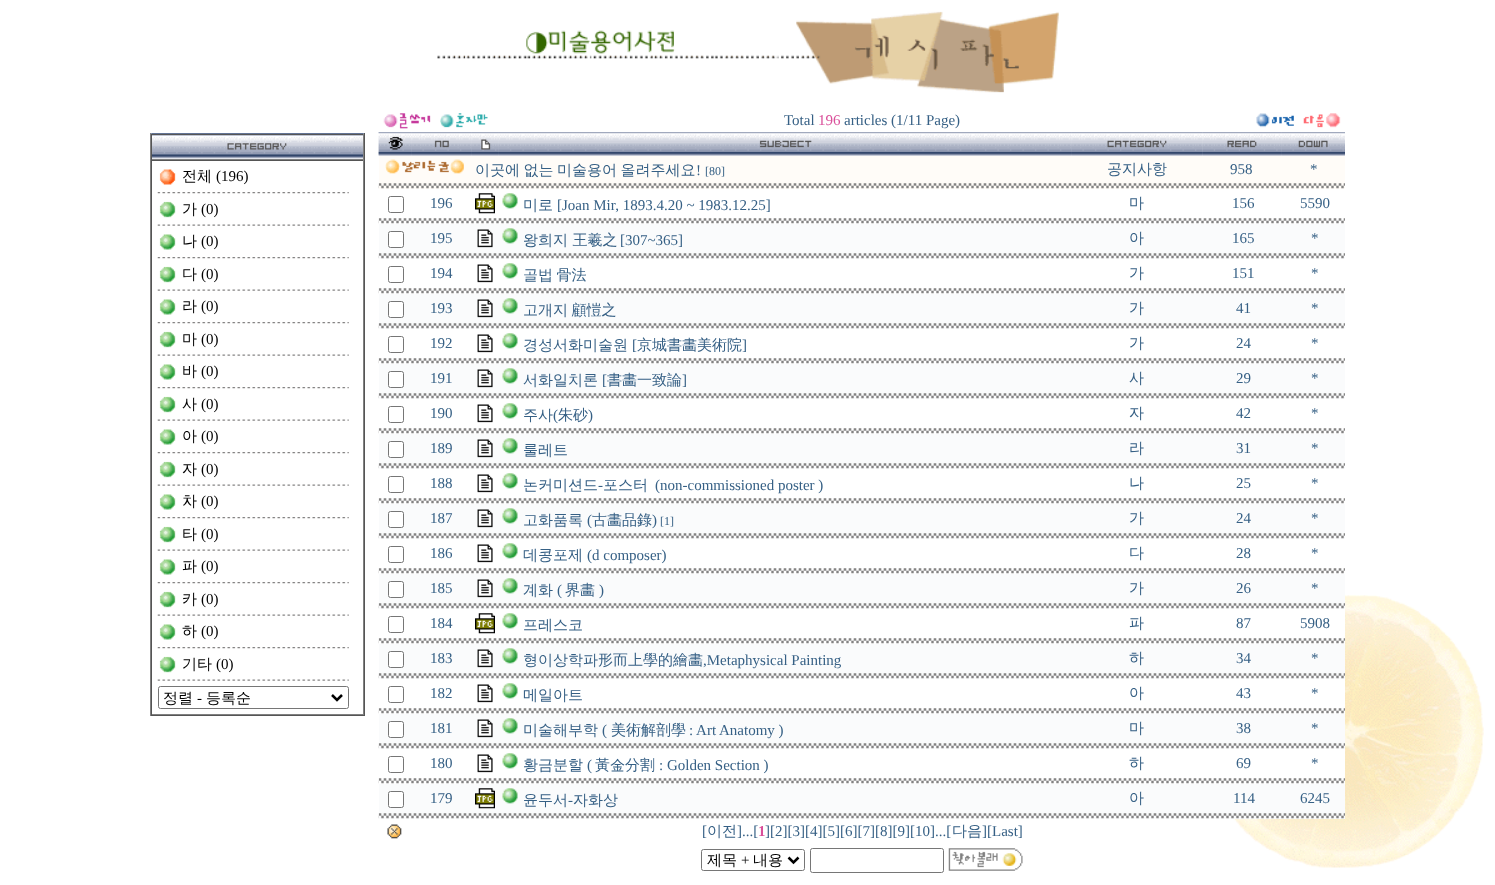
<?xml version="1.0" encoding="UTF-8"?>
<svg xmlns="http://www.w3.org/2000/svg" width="1495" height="885">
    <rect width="100%" height="100%" fill="#FFFFFF"/>
    <image x="1200" y="595" width="284" height="273" href="img_01.png"/>
    <image x="437" y="11" width="622" height="82" href="img_02.png"/>
    <image x="383" y="113" width="48" height="16" href="img_03.png"/>
    <image x="440" y="113" width="48" height="15" href="img_04.png"/>
    <text x="784" y="125" font-family="Liberation Serif" font-size="15" fill="#366085">Total</text>
    <text x="818" y="125" font-family="Liberation Serif" font-size="15" fill="#DA4F9A">196</text>
    <text x="844" y="125" font-family="Liberation Serif" font-size="15" fill="#366085">articles (1/11 Page)</text>
    <image x="1256" y="113" width="38" height="15" href="img_05.png"/>
    <image x="1303" y="113" width="38" height="15" href="img_06.png"/>
    <rect x="364" y="133" width="1" height="583" fill="#555555"/>
    <rect x="150" y="715" width="215" height="1" fill="#555555"/>
    <rect x="150" y="133" width="1" height="583" fill="#808080"/>
    <image x="151" y="133" width="213" height="26" href="img_07.png"/>
    <rect x="151" y="134" width="213" height="1" fill="#555555"/>
    <rect x="363" y="134" width="1" height="26" fill="#808080"/>
    <rect x="151" y="159" width="213" height="1" fill="#808080"/>
    <rect x="151" y="134" width="1" height="26" fill="#555555"/>
    <image x="227" y="143" width="60" height="7" href="img_08.png"/>
    <rect x="151" y="160" width="213" height="1" fill="#555555"/>
    <rect x="363" y="160" width="1" height="555" fill="#808080"/>
    <rect x="151" y="714" width="213" height="1" fill="#808080"/>
    <rect x="151" y="160" width="1" height="555" fill="#555555"/>
    <image x="159" y="169" width="17" height="16" href="img_09.png"/>
    <text x="182" y="181" font-family="WenQuanYi Zen Hei" font-size="15" font-weight="500" fill="#000000">전체</text>
    <text x="216" y="181" font-family="Liberation Serif" font-size="15" fill="#000000">(196)</text>
    <image x="157" y="192" width="192" height="2" href="img_10.png"/>
    <image x="159" y="201" width="17" height="17" href="img_11.png"/>
    <text x="182" y="214" font-family="WenQuanYi Zen Hei" font-size="15" font-weight="500" fill="#000000">가</text>
    <text x="201" y="214" font-family="Liberation Serif" font-size="15" fill="#000000">(0)</text>
    <image x="157" y="224" width="192" height="2" href="img_12.png"/>
    <image x="159" y="234" width="17" height="16" href="img_13.png"/>
    <text x="182" y="246" font-family="WenQuanYi Zen Hei" font-size="15" font-weight="500" fill="#000000">나</text>
    <text x="201" y="246" font-family="Liberation Serif" font-size="15" fill="#000000">(0)</text>
    <image x="157" y="257" width="192" height="2" href="img_10.png"/>
    <image x="159" y="266" width="17" height="17" href="img_11.png"/>
    <text x="182" y="279" font-family="WenQuanYi Zen Hei" font-size="15" font-weight="500" fill="#000000">다</text>
    <text x="201" y="279" font-family="Liberation Serif" font-size="15" fill="#000000">(0)</text>
    <image x="157" y="289" width="192" height="2" href="img_12.png"/>
    <image x="159" y="299" width="17" height="16" href="img_13.png"/>
    <text x="182" y="311" font-family="WenQuanYi Zen Hei" font-size="15" font-weight="500" fill="#000000">라</text>
    <text x="201" y="311" font-family="Liberation Serif" font-size="15" fill="#000000">(0)</text>
    <image x="157" y="322" width="192" height="2" href="img_10.png"/>
    <image x="159" y="331" width="17" height="17" href="img_11.png"/>
    <text x="182" y="344" font-family="WenQuanYi Zen Hei" font-size="15" font-weight="500" fill="#000000">마</text>
    <text x="201" y="344" font-family="Liberation Serif" font-size="15" fill="#000000">(0)</text>
    <image x="157" y="354" width="192" height="2" href="img_12.png"/>
    <image x="159" y="364" width="17" height="16" href="img_13.png"/>
    <text x="182" y="376" font-family="WenQuanYi Zen Hei" font-size="15" font-weight="500" fill="#000000">바</text>
    <text x="201" y="376" font-family="Liberation Serif" font-size="15" fill="#000000">(0)</text>
    <image x="157" y="387" width="192" height="2" href="img_10.png"/>
    <image x="159" y="396" width="17" height="17" href="img_11.png"/>
    <text x="182" y="409" font-family="WenQuanYi Zen Hei" font-size="15" font-weight="500" fill="#000000">사</text>
    <text x="201" y="409" font-family="Liberation Serif" font-size="15" fill="#000000">(0)</text>
    <image x="157" y="419" width="192" height="2" href="img_12.png"/>
    <image x="159" y="429" width="17" height="16" href="img_13.png"/>
    <text x="182" y="441" font-family="WenQuanYi Zen Hei" font-size="15" font-weight="500" fill="#000000">아</text>
    <text x="201" y="441" font-family="Liberation Serif" font-size="15" fill="#000000">(0)</text>
    <image x="157" y="452" width="192" height="2" href="img_10.png"/>
    <image x="159" y="461" width="17" height="17" href="img_14.png"/>
    <text x="182" y="474" font-family="WenQuanYi Zen Hei" font-size="15" font-weight="500" fill="#000000">자</text>
    <text x="201" y="474" font-family="Liberation Serif" font-size="15" fill="#000000">(0)</text>
    <image x="157" y="484" width="192" height="2" href="img_12.png"/>
    <image x="159" y="494" width="17" height="16" href="img_13.png"/>
    <text x="182" y="506" font-family="WenQuanYi Zen Hei" font-size="15" font-weight="500" fill="#000000">차</text>
    <text x="201" y="506" font-family="Liberation Serif" font-size="15" fill="#000000">(0)</text>
    <image x="157" y="517" width="192" height="2" href="img_10.png"/>
    <image x="159" y="526" width="17" height="17" href="img_11.png"/>
    <text x="182" y="539" font-family="WenQuanYi Zen Hei" font-size="15" font-weight="500" fill="#000000">타</text>
    <text x="201" y="539" font-family="Liberation Serif" font-size="15" fill="#000000">(0)</text>
    <image x="157" y="549" width="192" height="2" href="img_12.png"/>
    <image x="159" y="559" width="17" height="16" href="img_13.png"/>
    <text x="182" y="571" font-family="WenQuanYi Zen Hei" font-size="15" font-weight="500" fill="#000000">파</text>
    <text x="201" y="571" font-family="Liberation Serif" font-size="15" fill="#000000">(0)</text>
    <image x="157" y="582" width="192" height="2" href="img_10.png"/>
    <image x="159" y="591" width="17" height="17" href="img_11.png"/>
    <text x="182" y="604" font-family="WenQuanYi Zen Hei" font-size="15" font-weight="500" fill="#000000">카</text>
    <text x="201" y="604" font-family="Liberation Serif" font-size="15" fill="#000000">(0)</text>
    <image x="157" y="614" width="192" height="2" href="img_12.png"/>
    <image x="159" y="624" width="17" height="16" href="img_13.png"/>
    <text x="182" y="636" font-family="WenQuanYi Zen Hei" font-size="15" font-weight="500" fill="#000000">하</text>
    <text x="201" y="636" font-family="Liberation Serif" font-size="15" fill="#000000">(0)</text>
    <image x="157" y="647" width="192" height="2" href="img_10.png"/>
    <image x="159" y="656" width="17" height="17" href="img_11.png"/>
    <text x="182" y="669" font-family="WenQuanYi Zen Hei" font-size="15" font-weight="500" fill="#000000">기타</text>
    <text x="216" y="669" font-family="Liberation Serif" font-size="15" fill="#000000">(0)</text>
    <image x="157" y="679" width="192" height="2" href="img_12.png"/>
    <rect x="158.5" y="686.5" width="190" height="22" rx="2" fill="none" stroke="#767676"/>
    <path d="M 332 695 L 337 700 L 342 695" fill="none" stroke="#000000" stroke-width="2.5"/>
    <text x="163" y="703" font-family="WenQuanYi Zen Hei" font-size="15" font-weight="500" fill="#000000">정렬</text>
    <text x="197" y="703" font-family="Liberation Serif" font-size="15" fill="#000000">-</text>
    <text x="206" y="703" font-family="WenQuanYi Zen Hei" font-size="15" font-weight="500" fill="#000000">등록순</text>
    <image x="378" y="132" width="34" height="24" href="img_15.png"/>
    <image x="388" y="136" width="15" height="14" href="img_16.png"/>
    <image x="411" y="132" width="61" height="24" href="img_17.png"/>
    <image x="434" y="140" width="15" height="8" href="img_18.png"/>
    <image x="471" y="132" width="28" height="24" href="img_19.png"/>
    <image x="481" y="139" width="10" height="11" href="img_20.png"/>
    <image x="498" y="132" width="574" height="24" href="img_21.png"/>
    <image x="759" y="140" width="53" height="8" href="img_22.png"/>
    <image x="1071" y="132" width="132" height="24" href="img_23.png"/>
    <image x="1107" y="140" width="60" height="8" href="img_24.png"/>
    <image x="1202" y="132" width="80" height="24" href="img_25.png"/>
    <image x="1227" y="140" width="30" height="8" href="img_26.png"/>
    <image x="1281" y="132" width="64" height="24" href="img_27.png"/>
    <image x="1298" y="140" width="30" height="8" href="img_28.png"/>
    <rect x="379" y="156" width="966" height="28" fill="#FFFCF8"/>
    <image x="385" y="159" width="79" height="15" href="img_29.png"/>
    <text x="475" y="175" word-spacing="-1" font-family="WenQuanYi Zen Hei" font-size="15" font-weight="500" fill="#366085">이곳에 없는 미술용어 올려주세요</text>
    <text x="696" y="175" font-family="Liberation Serif" font-size="15" fill="#366085">!</text>
    <text x="705" y="175" font-family="Liberation Serif" font-size="12" fill="#366085">[80]</text>
    <text x="1107" y="174" font-family="WenQuanYi Zen Hei" font-size="15" font-weight="500" fill="#366085">공지사항</text>
    <text x="1230" y="174" font-family="Liberation Serif" font-size="15" fill="#366085">958</text>
    <text x="1310" y="174" font-family="Liberation Serif" font-size="15" fill="#366085">*</text>
    <rect x="379" y="188" width="966" height="1" fill="#FFFCF8"/>
    <image x="378" y="183" width="967" height="6" href="img_30.png"/>
    <rect x="388.5" y="196.5" width="15" height="16" rx="2" fill="none" stroke="#767676"/>
    <text x="430" y="208" font-family="Liberation Serif" font-size="15" fill="#366085">196</text>
    <image x="475" y="193" width="20" height="21" href="img_31.png"/>
    <image x="502" y="193" width="16" height="16" href="img_32.png"/>
    <text x="523" y="210" font-family="WenQuanYi Zen Hei" font-size="15" font-weight="500" fill="#366085">미로</text>
    <text x="557" y="210" font-family="Liberation Serif" font-size="15" fill="#366085">[Joan Mir, 1893.4.20 ~ 1983.12.25]</text>
    <text x="1129" y="208" font-family="WenQuanYi Zen Hei" font-size="15" font-weight="500" fill="#366085">마</text>
    <text x="1232" y="208" font-family="Liberation Serif" font-size="15" fill="#366085">156</text>
    <text x="1300" y="208" font-family="Liberation Serif" font-size="15" fill="#366085">5590</text>
    <image x="378" y="218" width="967" height="6" href="img_33.png"/>
    <rect x="379" y="224" width="966" height="30" fill="#FAFBFC"/>
    <rect x="388.5" y="231.5" width="15" height="16" rx="2" fill="#FFFFFF" stroke="#767676"/>
    <text x="430" y="243" font-family="Liberation Serif" font-size="15" fill="#366085">195</text>
    <image x="477" y="229" width="16" height="19" href="img_34.png"/>
    <image x="502" y="228" width="16" height="16" href="img_35.png"/>
    <text x="523" y="245" font-family="WenQuanYi Zen Hei" font-size="15" font-weight="500" fill="#366085">왕희지 王羲之</text>
    <text x="620" y="245" font-family="Liberation Serif" font-size="15" fill="#366085">[307~365]</text>
    <text x="1129" y="243" font-family="WenQuanYi Zen Hei" font-size="15" font-weight="500" fill="#366085">아</text>
    <text x="1232" y="243" font-family="Liberation Serif" font-size="15" fill="#366085">165</text>
    <text x="1311" y="243" font-family="Liberation Serif" font-size="15" fill="#366085">*</text>
    <rect x="379" y="258" width="966" height="1" fill="#FAFBFC"/>
    <image x="378" y="253" width="967" height="6" href="img_36.png"/>
    <rect x="388.5" y="266.5" width="15" height="16" rx="2" fill="none" stroke="#767676"/>
    <text x="430" y="278" font-family="Liberation Serif" font-size="15" fill="#366085">194</text>
    <image x="477" y="264" width="16" height="19" href="img_37.png"/>
    <image x="502" y="263" width="16" height="16" href="img_32.png"/>
    <text x="523" y="280" word-spacing="-1" font-family="WenQuanYi Zen Hei" font-size="15" font-weight="500" fill="#366085">골법 骨法</text>
    <text x="1129" y="278" font-family="WenQuanYi Zen Hei" font-size="15" font-weight="500" fill="#366085">가</text>
    <text x="1232" y="278" font-family="Liberation Serif" font-size="15" fill="#366085">151</text>
    <text x="1311" y="278" font-family="Liberation Serif" font-size="15" fill="#366085">*</text>
    <image x="378" y="288" width="967" height="6" href="img_38.png"/>
    <rect x="379" y="294" width="966" height="30" fill="#FAFBFC"/>
    <rect x="388.5" y="301.5" width="15" height="16" rx="2" fill="#FFFFFF" stroke="#767676"/>
    <text x="430" y="313" font-family="Liberation Serif" font-size="15" fill="#366085">193</text>
    <image x="477" y="299" width="16" height="19" href="img_34.png"/>
    <image x="502" y="298" width="16" height="16" href="img_35.png"/>
    <text x="523" y="315" word-spacing="-1" font-family="WenQuanYi Zen Hei" font-size="15" font-weight="500" fill="#366085">고개지 顧愷之</text>
    <text x="1129" y="313" font-family="WenQuanYi Zen Hei" font-size="15" font-weight="500" fill="#366085">가</text>
    <text x="1236" y="313" font-family="Liberation Serif" font-size="15" fill="#366085">41</text>
    <text x="1311" y="313" font-family="Liberation Serif" font-size="15" fill="#366085">*</text>
    <rect x="379" y="328" width="966" height="1" fill="#FAFBFC"/>
    <image x="378" y="323" width="967" height="6" href="img_36.png"/>
    <rect x="388.5" y="336.5" width="15" height="16" rx="2" fill="none" stroke="#767676"/>
    <text x="430" y="348" font-family="Liberation Serif" font-size="15" fill="#366085">192</text>
    <image x="477" y="334" width="16" height="19" href="img_37.png"/>
    <image x="502" y="333" width="16" height="16" href="img_32.png"/>
    <text x="523" y="350" font-family="WenQuanYi Zen Hei" font-size="15" font-weight="500" fill="#366085">경성서화미술원</text>
    <text x="632" y="350" font-family="Liberation Serif" font-size="15" fill="#366085">[</text>
    <text x="637" y="350" font-family="WenQuanYi Zen Hei" font-size="15" font-weight="500" fill="#366085">京城書畵美術院</text>
    <text x="742" y="350" font-family="Liberation Serif" font-size="15" fill="#366085">]</text>
    <text x="1129" y="348" font-family="WenQuanYi Zen Hei" font-size="15" font-weight="500" fill="#366085">가</text>
    <text x="1236" y="348" font-family="Liberation Serif" font-size="15" fill="#366085">24</text>
    <text x="1311" y="348" font-family="Liberation Serif" font-size="15" fill="#366085">*</text>
    <image x="378" y="358" width="967" height="6" href="img_39.png"/>
    <rect x="379" y="364" width="966" height="30" fill="#FAFBFC"/>
    <rect x="388.5" y="371.5" width="15" height="16" rx="2" fill="#FFFFFF" stroke="#767676"/>
    <text x="430" y="383" font-family="Liberation Serif" font-size="15" fill="#366085">191</text>
    <image x="477" y="369" width="16" height="19" href="img_34.png"/>
    <image x="502" y="368" width="16" height="16" href="img_35.png"/>
    <text x="523" y="385" font-family="WenQuanYi Zen Hei" font-size="15" font-weight="500" fill="#366085">서화일치론</text>
    <text x="602" y="385" font-family="Liberation Serif" font-size="15" fill="#366085">[</text>
    <text x="607" y="385" font-family="WenQuanYi Zen Hei" font-size="15" font-weight="500" fill="#366085">書畵一致論</text>
    <text x="682" y="385" font-family="Liberation Serif" font-size="15" fill="#366085">]</text>
    <text x="1129" y="383" font-family="WenQuanYi Zen Hei" font-size="15" font-weight="500" fill="#366085">사</text>
    <text x="1236" y="383" font-family="Liberation Serif" font-size="15" fill="#366085">29</text>
    <text x="1311" y="383" font-family="Liberation Serif" font-size="15" fill="#366085">*</text>
    <rect x="379" y="398" width="966" height="1" fill="#FAFBFC"/>
    <image x="378" y="393" width="967" height="6" href="img_36.png"/>
    <rect x="388.5" y="406.5" width="15" height="16" rx="2" fill="none" stroke="#767676"/>
    <text x="430" y="418" font-family="Liberation Serif" font-size="15" fill="#366085">190</text>
    <image x="477" y="404" width="16" height="19" href="img_37.png"/>
    <image x="502" y="403" width="16" height="16" href="img_32.png"/>
    <text x="523" y="420" font-family="WenQuanYi Zen Hei" font-size="15" font-weight="500" fill="#366085">주사</text>
    <text x="553" y="420" font-family="Liberation Serif" font-size="15" fill="#366085">(</text>
    <text x="558" y="420" font-family="WenQuanYi Zen Hei" font-size="15" font-weight="500" fill="#366085">朱砂</text>
    <text x="588" y="420" font-family="Liberation Serif" font-size="15" fill="#366085">)</text>
    <text x="1129" y="418" font-family="WenQuanYi Zen Hei" font-size="15" font-weight="500" fill="#366085">자</text>
    <text x="1236" y="418" font-family="Liberation Serif" font-size="15" fill="#366085">42</text>
    <text x="1311" y="418" font-family="Liberation Serif" font-size="15" fill="#366085">*</text>
    <image x="378" y="428" width="967" height="6" href="img_33.png"/>
    <rect x="379" y="434" width="966" height="30" fill="#FAFBFC"/>
    <rect x="388.5" y="441.5" width="15" height="16" rx="2" fill="#FFFFFF" stroke="#767676"/>
    <text x="430" y="453" font-family="Liberation Serif" font-size="15" fill="#366085">189</text>
    <image x="477" y="439" width="16" height="19" href="img_34.png"/>
    <image x="502" y="438" width="16" height="16" href="img_35.png"/>
    <text x="523" y="455" font-family="WenQuanYi Zen Hei" font-size="15" font-weight="500" fill="#366085">룰레트</text>
    <text x="1129" y="453" font-family="WenQuanYi Zen Hei" font-size="15" font-weight="500" fill="#366085">라</text>
    <text x="1236" y="453" font-family="Liberation Serif" font-size="15" fill="#366085">31</text>
    <text x="1311" y="453" font-family="Liberation Serif" font-size="15" fill="#366085">*</text>
    <rect x="379" y="468" width="966" height="1" fill="#FAFBFC"/>
    <image x="378" y="463" width="967" height="6" href="img_36.png"/>
    <rect x="388.5" y="476.5" width="15" height="16" rx="2" fill="none" stroke="#767676"/>
    <text x="430" y="488" font-family="Liberation Serif" font-size="15" fill="#366085">188</text>
    <image x="477" y="474" width="16" height="19" href="img_37.png"/>
    <image x="502" y="473" width="16" height="16" href="img_32.png"/>
    <text x="523" y="490" font-family="WenQuanYi Zen Hei" font-size="15" font-weight="500" fill="#366085">논커미션드</text>
    <text x="598" y="490" font-family="Liberation Serif" font-size="15" fill="#366085">-</text>
    <text x="603" y="490" font-family="WenQuanYi Zen Hei" font-size="15" font-weight="500" fill="#366085">포스터</text>
    <text x="655" y="490" font-family="Liberation Serif" font-size="15" fill="#366085">(non-commissioned poster )</text>
    <text x="1129" y="488" font-family="WenQuanYi Zen Hei" font-size="15" font-weight="500" fill="#366085">나</text>
    <text x="1236" y="488" font-family="Liberation Serif" font-size="15" fill="#366085">25</text>
    <text x="1311" y="488" font-family="Liberation Serif" font-size="15" fill="#366085">*</text>
    <image x="378" y="498" width="967" height="6" href="img_40.png"/>
    <rect x="379" y="504" width="966" height="30" fill="#FAFBFC"/>
    <rect x="388.5" y="511.5" width="15" height="16" rx="2" fill="#FFFFFF" stroke="#767676"/>
    <text x="430" y="523" font-family="Liberation Serif" font-size="15" fill="#366085">187</text>
    <image x="477" y="509" width="16" height="19" href="img_34.png"/>
    <image x="502" y="508" width="16" height="16" href="img_35.png"/>
    <text x="523" y="525" font-family="WenQuanYi Zen Hei" font-size="15" font-weight="500" fill="#366085">고화품록</text>
    <text x="587" y="525" font-family="Liberation Serif" font-size="15" fill="#366085">(</text>
    <text x="592" y="525" font-family="WenQuanYi Zen Hei" font-size="15" font-weight="500" fill="#366085">古畵品錄</text>
    <text x="652" y="525" font-family="Liberation Serif" font-size="15" fill="#366085">)</text>
    <text x="660" y="525" font-family="Liberation Serif" font-size="12" fill="#366085">[1]</text>
    <text x="1129" y="523" font-family="WenQuanYi Zen Hei" font-size="15" font-weight="500" fill="#366085">가</text>
    <text x="1236" y="523" font-family="Liberation Serif" font-size="15" fill="#366085">24</text>
    <text x="1311" y="523" font-family="Liberation Serif" font-size="15" fill="#366085">*</text>
    <rect x="379" y="538" width="966" height="1" fill="#FAFBFC"/>
    <image x="378" y="533" width="967" height="6" href="img_36.png"/>
    <rect x="388.5" y="546.5" width="15" height="16" rx="2" fill="none" stroke="#767676"/>
    <text x="430" y="558" font-family="Liberation Serif" font-size="15" fill="#366085">186</text>
    <image x="477" y="544" width="16" height="19" href="img_37.png"/>
    <image x="502" y="543" width="16" height="16" href="img_32.png"/>
    <text x="523" y="560" font-family="WenQuanYi Zen Hei" font-size="15" font-weight="500" fill="#366085">데콩포제</text>
    <text x="587" y="560" font-family="Liberation Serif" font-size="15" fill="#366085">(d composer)</text>
    <text x="1129" y="558" font-family="WenQuanYi Zen Hei" font-size="15" font-weight="500" fill="#366085">다</text>
    <text x="1236" y="558" font-family="Liberation Serif" font-size="15" fill="#366085">28</text>
    <text x="1311" y="558" font-family="Liberation Serif" font-size="15" fill="#366085">*</text>
    <image x="378" y="568" width="967" height="6" href="img_41.png"/>
    <rect x="379" y="574" width="966" height="30" fill="#FAFBFC"/>
    <rect x="388.5" y="581.5" width="15" height="16" rx="2" fill="#FFFFFF" stroke="#767676"/>
    <text x="430" y="593" font-family="Liberation Serif" font-size="15" fill="#366085">185</text>
    <image x="477" y="579" width="16" height="19" href="img_34.png"/>
    <image x="502" y="578" width="16" height="16" href="img_35.png"/>
    <text x="523" y="595" font-family="WenQuanYi Zen Hei" font-size="15" font-weight="500" fill="#366085">계화</text>
    <text x="557" y="595" font-family="Liberation Serif" font-size="15" fill="#366085">(</text>
    <text x="565" y="595" font-family="WenQuanYi Zen Hei" font-size="15" font-weight="500" fill="#366085">界畵</text>
    <text x="599" y="595" font-family="Liberation Serif" font-size="15" fill="#366085">)</text>
    <text x="1129" y="593" font-family="WenQuanYi Zen Hei" font-size="15" font-weight="500" fill="#366085">가</text>
    <text x="1236" y="593" font-family="Liberation Serif" font-size="15" fill="#366085">26</text>
    <text x="1311" y="593" font-family="Liberation Serif" font-size="15" fill="#366085">*</text>
    <rect x="379" y="608" width="966" height="1" fill="#FAFBFC"/>
    <image x="378" y="603" width="967" height="6" href="img_36.png"/>
    <rect x="1238" y="609" width="107" height="30" fill="#FFFFFF"/>
    <rect x="388.5" y="616.5" width="15" height="16" rx="2" fill="none" stroke="#767676"/>
    <text x="430" y="628" font-family="Liberation Serif" font-size="15" fill="#366085">184</text>
    <image x="475" y="613" width="20" height="21" href="img_31.png"/>
    <image x="502" y="613" width="16" height="16" href="img_32.png"/>
    <text x="523" y="630" font-family="WenQuanYi Zen Hei" font-size="15" font-weight="500" fill="#366085">프레스코</text>
    <text x="1129" y="628" font-family="WenQuanYi Zen Hei" font-size="15" font-weight="500" fill="#366085">파</text>
    <text x="1236" y="628" font-family="Liberation Serif" font-size="15" fill="#366085">87</text>
    <text x="1300" y="628" font-family="Liberation Serif" font-size="15" fill="#366085">5908</text>
    <rect x="1234" y="643" width="111" height="1" fill="#FFFFFF"/>
    <image x="378" y="638" width="967" height="6" href="img_42.png"/>
    <rect x="379" y="644" width="966" height="30" fill="#FAFBFC"/>
    <rect x="388.5" y="651.5" width="15" height="16" rx="2" fill="#FFFFFF" stroke="#767676"/>
    <text x="430" y="663" font-family="Liberation Serif" font-size="15" fill="#366085">183</text>
    <image x="477" y="649" width="16" height="19" href="img_43.png"/>
    <image x="502" y="648" width="16" height="16" href="img_44.png"/>
    <text x="523" y="665" font-family="WenQuanYi Zen Hei" font-size="15" font-weight="500" fill="#366085">형이상학파形而上學的繪畵</text>
    <text x="703" y="665" font-family="Liberation Serif" font-size="15" fill="#366085">,Metaphysical Painting</text>
    <text x="1129" y="663" font-family="WenQuanYi Zen Hei" font-size="15" font-weight="500" fill="#366085">하</text>
    <text x="1236" y="663" font-family="Liberation Serif" font-size="15" fill="#366085">34</text>
    <text x="1311" y="663" font-family="Liberation Serif" font-size="15" fill="#366085">*</text>
    <rect x="379" y="678" width="966" height="1" fill="#FAFBFC"/>
    <image x="378" y="673" width="967" height="6" href="img_36.png"/>
    <rect x="1201" y="679" width="144" height="30" fill="#FFFFFF"/>
    <rect x="388.5" y="686.5" width="15" height="16" rx="2" fill="none" stroke="#767676"/>
    <text x="430" y="698" font-family="Liberation Serif" font-size="15" fill="#366085">182</text>
    <image x="477" y="684" width="16" height="19" href="img_37.png"/>
    <image x="502" y="683" width="16" height="16" href="img_32.png"/>
    <text x="523" y="700" font-family="WenQuanYi Zen Hei" font-size="15" font-weight="500" fill="#366085">메일아트</text>
    <text x="1129" y="698" font-family="WenQuanYi Zen Hei" font-size="15" font-weight="500" fill="#366085">아</text>
    <text x="1236" y="698" font-family="Liberation Serif" font-size="15" fill="#366085">43</text>
    <text x="1311" y="698" font-family="Liberation Serif" font-size="15" fill="#366085">*</text>
    <rect x="1201" y="713" width="144" height="1" fill="#FFFFFF"/>
    <image x="378" y="708" width="967" height="6" href="img_39.png"/>
    <rect x="379" y="714" width="966" height="30" fill="#FAFBFC"/>
    <rect x="388.5" y="721.5" width="15" height="16" rx="2" fill="#FFFFFF" stroke="#767676"/>
    <text x="430" y="733" font-family="Liberation Serif" font-size="15" fill="#366085">181</text>
    <image x="477" y="719" width="16" height="19" href="img_34.png"/>
    <image x="502" y="718" width="16" height="16" href="img_35.png"/>
    <text x="523" y="735" font-family="WenQuanYi Zen Hei" font-size="15" font-weight="500" fill="#366085">미술해부학</text>
    <text x="602" y="735" font-family="Liberation Serif" font-size="15" fill="#366085">(</text>
    <text x="611" y="735" font-family="WenQuanYi Zen Hei" font-size="15" font-weight="500" fill="#366085">美術解剖學</text>
    <text x="689" y="735" font-family="Liberation Serif" font-size="15" fill="#366085">: Art Anatomy )</text>
    <text x="1129" y="733" font-family="WenQuanYi Zen Hei" font-size="15" font-weight="500" fill="#366085">마</text>
    <text x="1236" y="733" font-family="Liberation Serif" font-size="15" fill="#366085">38</text>
    <text x="1311" y="733" font-family="Liberation Serif" font-size="15" fill="#366085">*</text>
    <rect x="379" y="748" width="966" height="1" fill="#FAFBFC"/>
    <image x="378" y="743" width="967" height="6" href="img_36.png"/>
    <rect x="1201" y="749" width="144" height="30" fill="#FFFFFF"/>
    <rect x="388.5" y="756.5" width="15" height="16" rx="2" fill="none" stroke="#767676"/>
    <text x="430" y="768" font-family="Liberation Serif" font-size="15" fill="#366085">180</text>
    <image x="477" y="754" width="16" height="19" href="img_37.png"/>
    <image x="502" y="753" width="16" height="16" href="img_32.png"/>
    <text x="523" y="770" font-family="WenQuanYi Zen Hei" font-size="15" font-weight="500" fill="#366085">황금분할</text>
    <text x="587" y="770" font-family="Liberation Serif" font-size="15" fill="#366085">(</text>
    <text x="595" y="770" font-family="WenQuanYi Zen Hei" font-size="15" font-weight="500" fill="#366085">黃金分割</text>
    <text x="659" y="770" font-family="Liberation Serif" font-size="15" fill="#366085">: Golden Section )</text>
    <text x="1129" y="768" font-family="WenQuanYi Zen Hei" font-size="15" font-weight="500" fill="#366085">하</text>
    <text x="1236" y="768" font-family="Liberation Serif" font-size="15" fill="#366085">69</text>
    <text x="1311" y="768" font-family="Liberation Serif" font-size="15" fill="#366085">*</text>
    <rect x="1212" y="783" width="133" height="1" fill="#FFFFFF"/>
    <image x="378" y="778" width="967" height="6" href="img_45.png"/>
    <rect x="379" y="784" width="966" height="30" fill="#FAFBFC"/>
    <rect x="388.5" y="791.5" width="15" height="16" rx="2" fill="#FFFFFF" stroke="#767676"/>
    <text x="430" y="803" font-family="Liberation Serif" font-size="15" fill="#366085">179</text>
    <image x="475" y="788" width="20" height="21" href="img_46.png"/>
    <image x="502" y="788" width="16" height="16" href="img_35.png"/>
    <text x="523" y="805" font-family="WenQuanYi Zen Hei" font-size="15" font-weight="500" fill="#366085">윤두서</text>
    <text x="568" y="805" font-family="Liberation Serif" font-size="15" fill="#366085">-</text>
    <text x="573" y="805" font-family="WenQuanYi Zen Hei" font-size="15" font-weight="500" fill="#366085">자화상</text>
    <text x="1129" y="803" font-family="WenQuanYi Zen Hei" font-size="15" font-weight="500" fill="#366085">아</text>
    <text x="1233" y="803" font-family="Liberation Serif" font-size="15" fill="#366085">114</text>
    <text x="1300" y="803" font-family="Liberation Serif" font-size="15" fill="#366085">6245</text>
    <rect x="379" y="818" width="966" height="1" fill="#FAFBFC"/>
    <image x="378" y="813" width="967" height="6" href="img_36.png"/>
    <image x="387" y="824" width="15" height="15" href="img_47.png"/>
    <text x="702" y="836" font-family="Liberation Serif" font-size="15" fill="#366085">[</text>
    <text x="707" y="836" font-family="WenQuanYi Zen Hei" font-size="15" font-weight="500" fill="#366085">이전</text>
    <text x="737" y="836" font-family="Liberation Serif" font-size="15" fill="#366085">]...[</text>
    <text x="758" y="836" font-family="Liberation Serif" font-size="15" font-weight="700" fill="#DA4F9A">1</text>
    <text x="765" y="836" font-family="Liberation Serif" font-size="15" fill="#366085">][2][3][4][5][6][7][8][9][10]...[</text>
    <text x="952" y="836" font-family="WenQuanYi Zen Hei" font-size="15" font-weight="500" fill="#366085">다음</text>
    <text x="982" y="836" font-family="Liberation Serif" font-size="15" fill="#366085">][Last]</text>
    <rect x="701.5" y="849.5" width="103" height="21" rx="2" fill="none" stroke="#767676"/>
    <path d="M 788.5 857.5 L 793.5 862.5 L 798.5 857.5" fill="none" stroke="#000000" stroke-width="2.5"/>
    <text x="707" y="865" font-family="WenQuanYi Zen Hei" font-size="15" font-weight="500" fill="#000000">제목</text>
    <text x="741" y="865" font-family="Liberation Serif" font-size="15" fill="#000000">+</text>
    <text x="753" y="865" font-family="WenQuanYi Zen Hei" font-size="15" font-weight="500" fill="#000000">내용</text>
    <rect x="810.5" y="848.5" width="133" height="24" rx="2" fill="none" stroke="#767676"/>
    <image x="948" y="848" width="75" height="23" href="img_48.png"/>
</svg>
